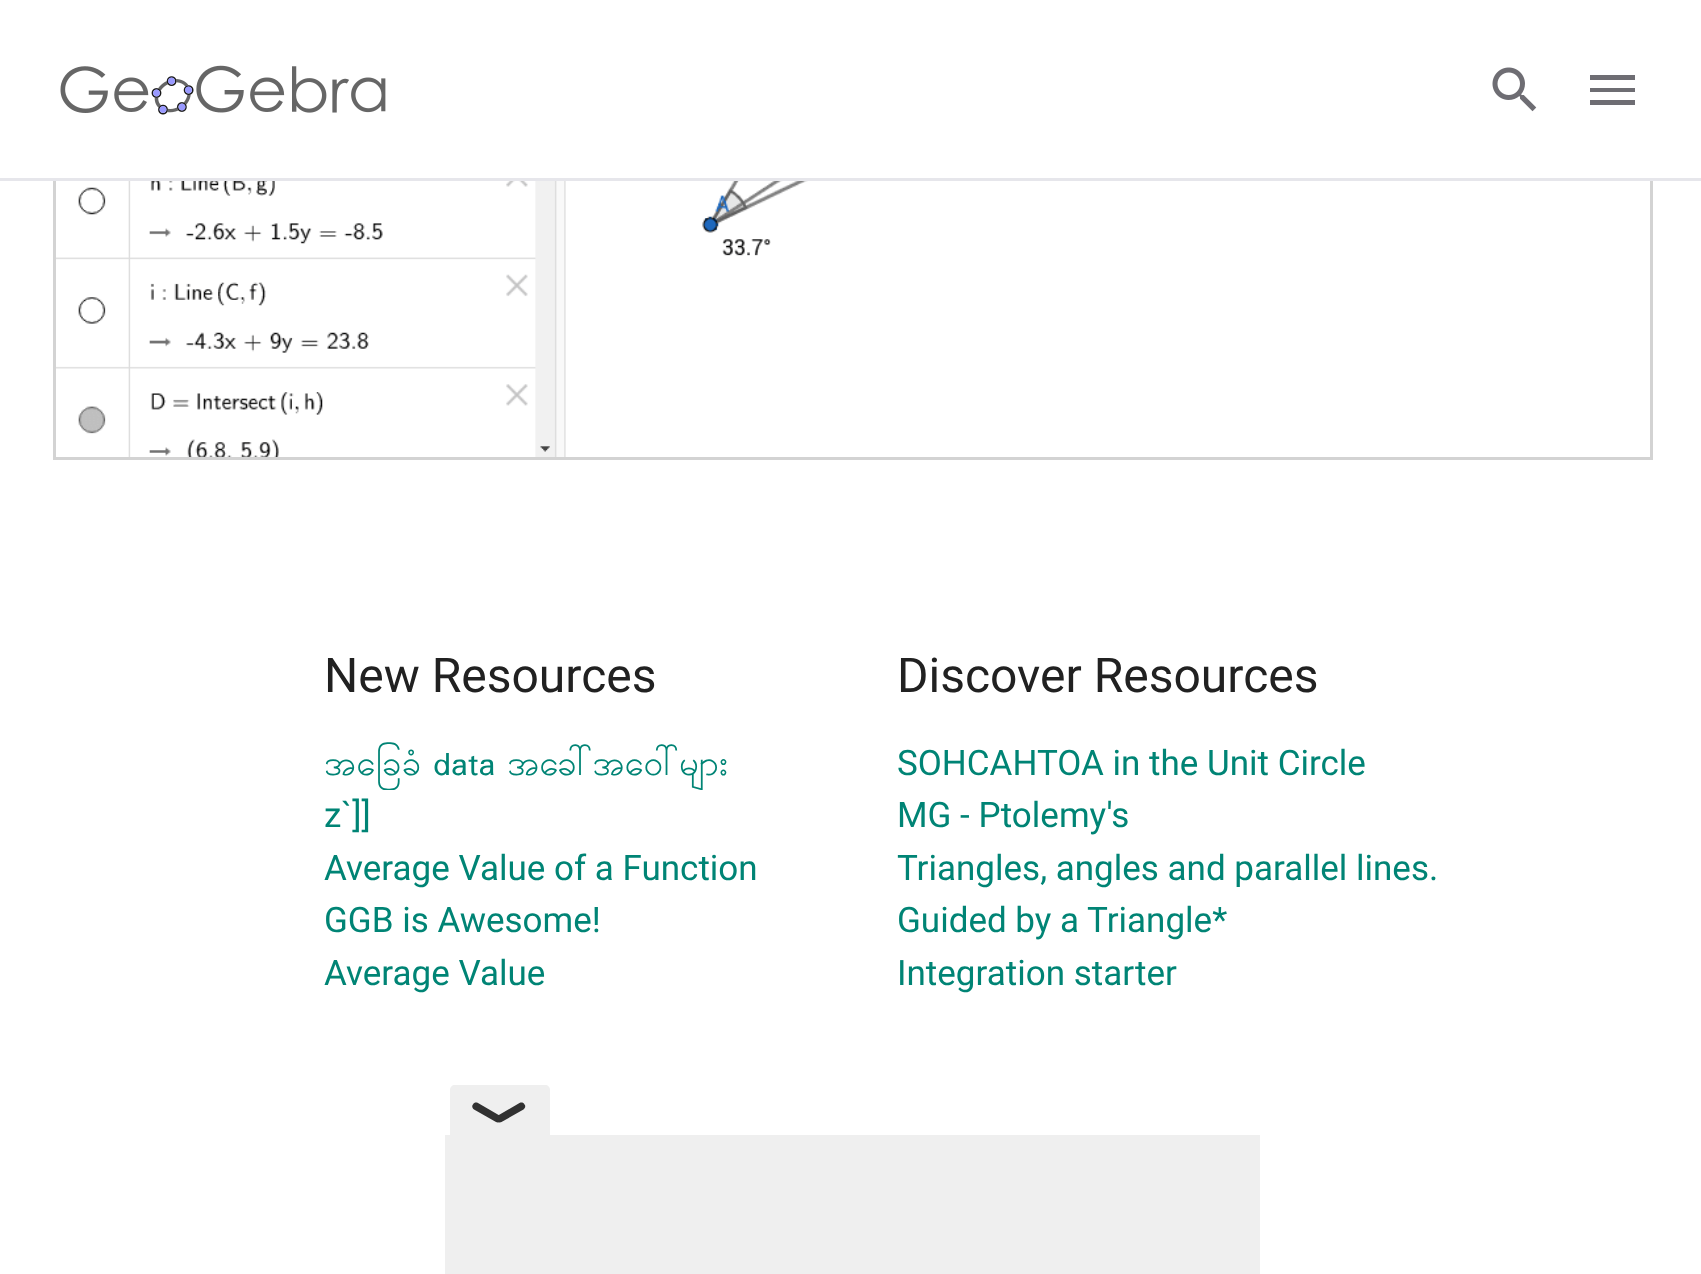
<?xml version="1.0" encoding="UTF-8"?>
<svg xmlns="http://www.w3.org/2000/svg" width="1701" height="1274">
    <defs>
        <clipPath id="clip1"><rect x="325" y="738" width="433" height="52"/></clipPath>
    </defs>
    <rect width="100%" height="100%" fill="#FFFFFF"/>
    <image x="56" y="181" width="1128" height="276" href="img_03.png"/>
    <rect x="54.5" y="-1.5" width="1597" height="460" fill="none" stroke="#D3D3D3" stroke-width="3"/>
    <rect x="53" y="0" width="1600" height="178" fill="#FFFFFF"/>
    <rect x="0" y="178" width="1701" height="3" fill="#E6E6EB"/>
    <image x="60" y="65" width="326" height="50" href="img_01.png"/>
    <image x="1492" y="67" width="45" height="45" href="img_02.png"/>
    <path d="M 1590 75 H 1635 V 80 H 1590 V 75 M 1590 88 H 1635 V 92 H 1590 V 88 M 1590 100 H 1635 V 105 H 1590 Z" fill="#6E6D73"/>
    <text x="324" y="692" font-family="Roboto" font-size="48" fill="#212121">New Resources</text>
    <g clip-path="url(#clip1)">
        <text x="324" y="775" word-spacing="-1" font-family="Padauk" font-size="35" fill="#008475">အခြေခံ data အခေါ်အဝေါ်များ</text>
    </g>
    <text font-family="Roboto" font-size="35" fill="#008475">
        <tspan x="324" y="827">z`]]</tspan>
        <tspan x="324" y="880">Average Value of a Function</tspan>
        <tspan x="324" y="932">GGB is Awesome!</tspan>
        <tspan x="324" y="985">Average Value</tspan>
    </text>
    <text x="897" y="692" font-family="Roboto" font-size="48" fill="#212121">Discover Resources</text>
    <text font-family="Roboto" font-size="35" fill="#008475">
        <tspan x="897" y="775">SOHCAHTOA in the Unit Circle</tspan>
        <tspan x="897" y="827">MG - Ptolemy's</tspan>
        <tspan x="897" y="880">Triangles, angles and parallel lines.</tspan>
        <tspan x="897" y="932">Guided by a Triangle*</tspan>
        <tspan x="897" y="985">Integration starter</tspan>
    </text>
    <path d="M 455 1085 H 545 C 548 1085 550 1087 550 1090 V 1135 H 450 V 1090 C 450 1087 452 1085 455 1085 Z" fill="#EFEFEF"/>
    <path d="M 478 1103 L 499.5 1115.5 C 501.5 1116.5 502 1119 501 1120.5 C 500 1122.5 497.5 1123 496 1122 L 474 1109.5 C 472.5 1108.5 471.5 1106 473 1104.5 C 474 1102.5 476 1102 478 1103 Z" fill="#313131"/>
    <path d="M 498 1115.5 L 519.5 1103 C 521.5 1102 523.5 1102.5 524.5 1104.5 C 526 1106 525 1108.5 523.5 1109.5 L 501.5 1122 C 500 1123 497.5 1122.5 496.5 1120.5 C 495.5 1119 496 1116.5 498 1115.5 Z" fill="#313131"/>
    <rect x="445" y="1135" width="815" height="139" fill="#EFEFEF"/>
</svg>
